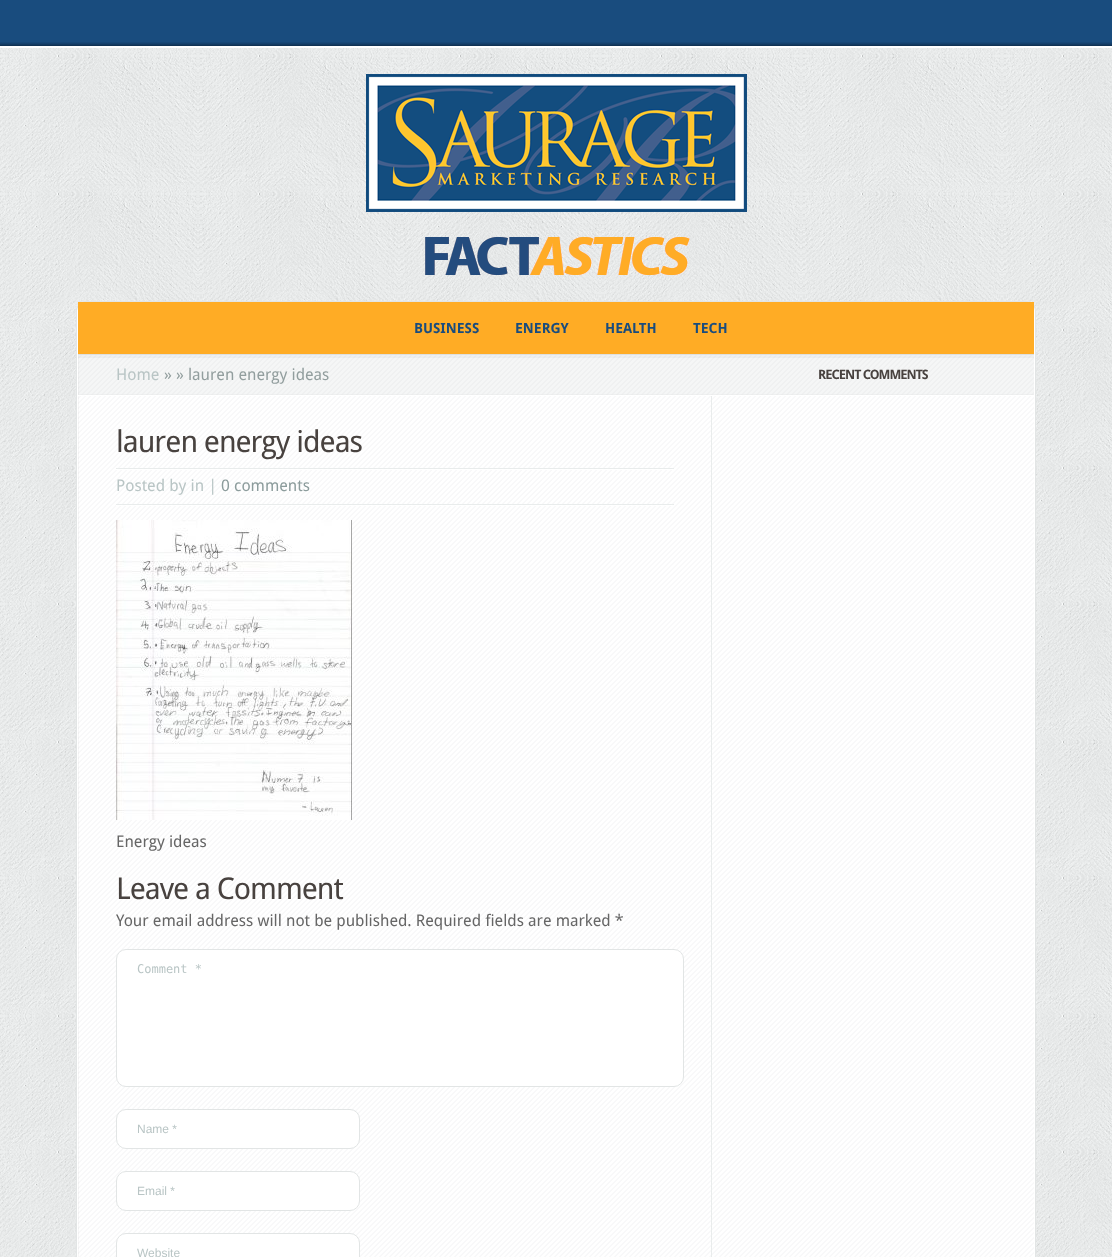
<?xml version="1.0" encoding="UTF-8"?>
<svg xmlns="http://www.w3.org/2000/svg" width="1112" height="1257">
    <rect width="100%" height="100%" fill="#FAFCFC"/>
    <rect x="0" y="0" width="1112" height="46" fill="#194C7E"/>
    <rect x="0" y="46" width="1112" height="2" fill="#FFFFFF"/>
    <image x="0" y="42" width="1112" height="4" href="img_01.png"/>
    <image x="0" y="48" width="1112" height="1209" href="img_02.png"/>
    <image x="366" y="74" width="381" height="201" href="img_03.png"/>
    <rect x="76.5" y="301.5" width="959" height="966" rx="9.5" fill="none" stroke="#E2E5E5"/>
    <image x="77" y="308" width="958" height="949" href="img_04.png"/>
    <rect x="77.5" y="302.5" width="957" height="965" rx="9.5" fill="none" stroke="#FFFFFF"/>
    <image x="78" y="355" width="1" height="902" href="img_05.png"/>
    <rect x="78" y="302" width="956" height="52" fill="#FFAC25"/>
    <text x="414" y="333" font-family="Droid Sans" font-size="14" font-weight="700" fill="#194C7E">BUSINESS</text>
    <text x="515" y="333" font-family="Droid Sans" font-size="14" font-weight="700" fill="#194C7E">ENERGY</text>
    <text x="605" y="333" font-family="Droid Sans" font-size="14" font-weight="700" fill="#194C7E">HEALTH</text>
    <text x="693" y="333" font-family="Droid Sans" font-size="14" font-weight="700" fill="#194C7E">TECH</text>
    <image x="78" y="355" width="634" height="41" href="img_06.png"/>
    <image x="712" y="355" width="322" height="41" href="img_09.png"/>
    <rect x="78" y="356" width="956" height="2" fill="#000000" fill-opacity="0.03"/>
    <rect x="78" y="354" width="956" height="1" fill="#DEE0E0"/>
    <text x="116" y="380" font-family="Droid Sans" font-size="16" fill="#B9C5C5">Home</text>
    <text x="164" y="380" font-family="Droid Sans" font-size="16" fill="#929E9E">» » lauren energy ideas</text>
    <rect x="711" y="396" width="1" height="861" fill="#E9ECEC"/>
    <text x="116" y="452" font-family="Droid Sans" font-size="30" letter-spacing="-1" fill="#48423F">lauren energy ideas</text>
    <image x="116" y="468" width="558" height="2" href="img_07.png"/>
    <image x="116" y="504" width="558" height="2" href="img_07.png"/>
    <text x="116" y="491" font-family="Droid Sans" font-size="16" fill="#B9C5C5">Posted by in |</text>
    <text x="221" y="491" font-family="Droid Sans" font-size="16" fill="#8C9C9C">0 comments</text>
    <image x="116" y="520" width="236" height="300" href="img_08.png"/>
    <text x="116" y="847" font-family="Droid Sans" font-size="16" fill="#666666">Energy ideas</text>
    <text x="116" y="899" font-family="Droid Sans" font-size="30" letter-spacing="-1" fill="#48423F">Leave a Comment</text>
    <text x="116" y="926" font-family="Droid Sans" font-size="16" fill="#666666">Your email address will not be published. Required fields are marked *</text>
    <rect x="116.5" y="949.5" width="567" height="137" rx="9.5" fill="#FFFFFF" stroke="#E2E5E5"/>
    <text x="137" y="973" font-family="DejaVu Sans Mono" font-size="12" fill="#B9C5C5">Comment *</text>
    <rect x="116.5" y="1109.5" width="243" height="39" rx="9.5" fill="#FFFFFF" stroke="#E2E5E5"/>
    <text x="137" y="1133" font-family="Liberation Sans" font-size="12" fill="#B9C5C5">Name *</text>
    <rect x="116.5" y="1171.5" width="243" height="39" rx="9.5" fill="#FFFFFF" stroke="#E2E5E5"/>
    <text x="137" y="1195" font-family="Liberation Sans" font-size="12" fill="#B9C5C5">Email *</text>
    <rect x="116.5" y="1233.5" width="243" height="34" rx="9.5" fill="#FFFFFF" stroke="#E2E5E5"/>
    <text x="137" y="1257" font-family="Liberation Sans" font-size="12" fill="#B9C5C5">Website</text>
    <text x="818" y="379" font-family="Droid Sans" font-size="13" font-weight="700" letter-spacing="-1" fill="#48423F">RECENT COMMENTS</text>
</svg>
